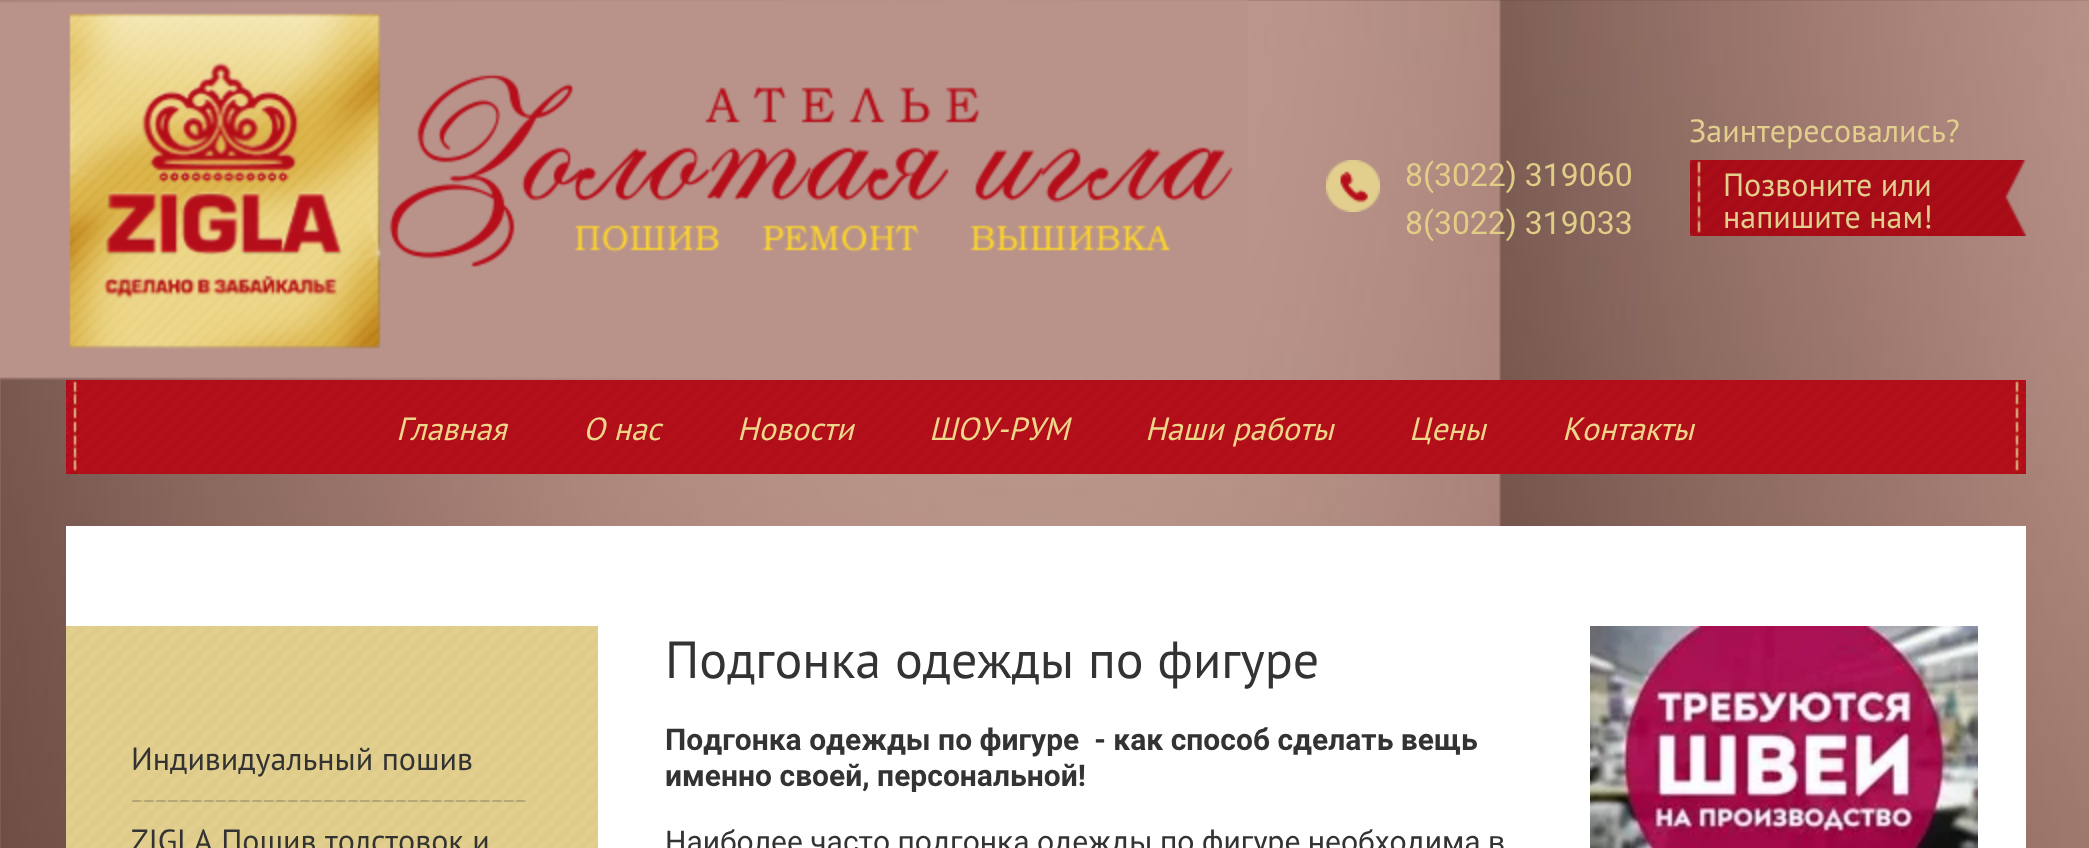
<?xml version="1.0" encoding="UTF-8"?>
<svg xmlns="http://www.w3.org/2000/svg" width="2089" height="848">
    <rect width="100%" height="100%" fill="#FFFFFF"/>
    <image x="0" y="0" width="2089" height="848" href="img_01.png"/>
    <image x="0" y="0" width="1248" height="380" href="img_02.png"/>
    <image x="1326" y="160" width="54" height="52" href="img_03.png"/>
    <text font-family="Roboto" font-size="32" fill="#E1CD86">
        <tspan x="1405" y="186">8(3022) 319060</tspan>
        <tspan x="1405" y="234">8(3022) 319033</tspan>
    </text>
    <text x="1689" y="142" font-family="PT Sans" font-size="32" fill="#E2CF8E">Заинтересовались?</text>
    <image x="1690" y="160" width="336" height="76" href="img_04.png"/>
    <text font-family="PT Sans" font-size="32" fill="#E2CF8E">
        <tspan x="1723" y="196">Позвоните или</tspan>
        <tspan x="1723" y="228">напишите нам!</tspan>
    </text>
    <image x="66" y="380" width="1960" height="94" href="img_05.png"/>
    <text x="396" y="440" font-family="PT Sans" font-size="32" font-style="italic" fill="#EDD68A">Главная</text>
    <text x="583" y="440" font-family="PT Sans" font-size="32" font-style="italic" fill="#EDD68A">О нас</text>
    <text x="737" y="440" font-family="PT Sans" font-size="32" font-style="italic" fill="#EDD68A">Новости</text>
    <text x="929" y="440" font-family="PT Sans" font-size="32" font-style="italic" fill="#EDD68A">ШОУ-РУМ</text>
    <text x="1145" y="440" font-family="PT Sans" font-size="32" font-style="italic" fill="#EDD68A">Наши работы</text>
    <text x="1409" y="440" font-family="PT Sans" font-size="32" font-style="italic" fill="#EDD68A">Цены</text>
    <text x="1562" y="440" font-family="PT Sans" font-size="32" font-style="italic" fill="#EDD68A">Контакты</text>
    <rect x="66" y="526" width="1960" height="322" fill="#FFFFFF"/>
    <image x="66" y="626" width="532" height="222" href="img_06.png"/>
    <text x="131" y="770" font-family="PT Sans" font-size="32" fill="#333333">Индивидуальный пошив</text>
    <image x="132" y="800" width="394" height="2" href="img_07.png"/>
    <text x="131" y="852" font-family="PT Sans" font-size="32" fill="#333333">ZIGLA Пошив толстовок и</text>
    <text x="665" y="678" font-family="PT Sans" font-size="52" fill="#333333">Подгонка одежды по фигуре</text>
    <text font-family="Roboto" font-size="30" font-weight="700" fill="#333333" xml:space="preserve"><tspan x="665" y="750">Подгонка одежды по фигуре  - как способ сделать вещь</tspan><tspan x="665" y="786">именно своей, персональной!</tspan></text>
    <text x="665" y="852" font-family="Roboto" font-size="30" fill="#333333">Наиболее часто подгонка одежды по фигуре необходима в</text>
    <image x="1590" y="626" width="388" height="222" href="img_08.png"/>
</svg>
